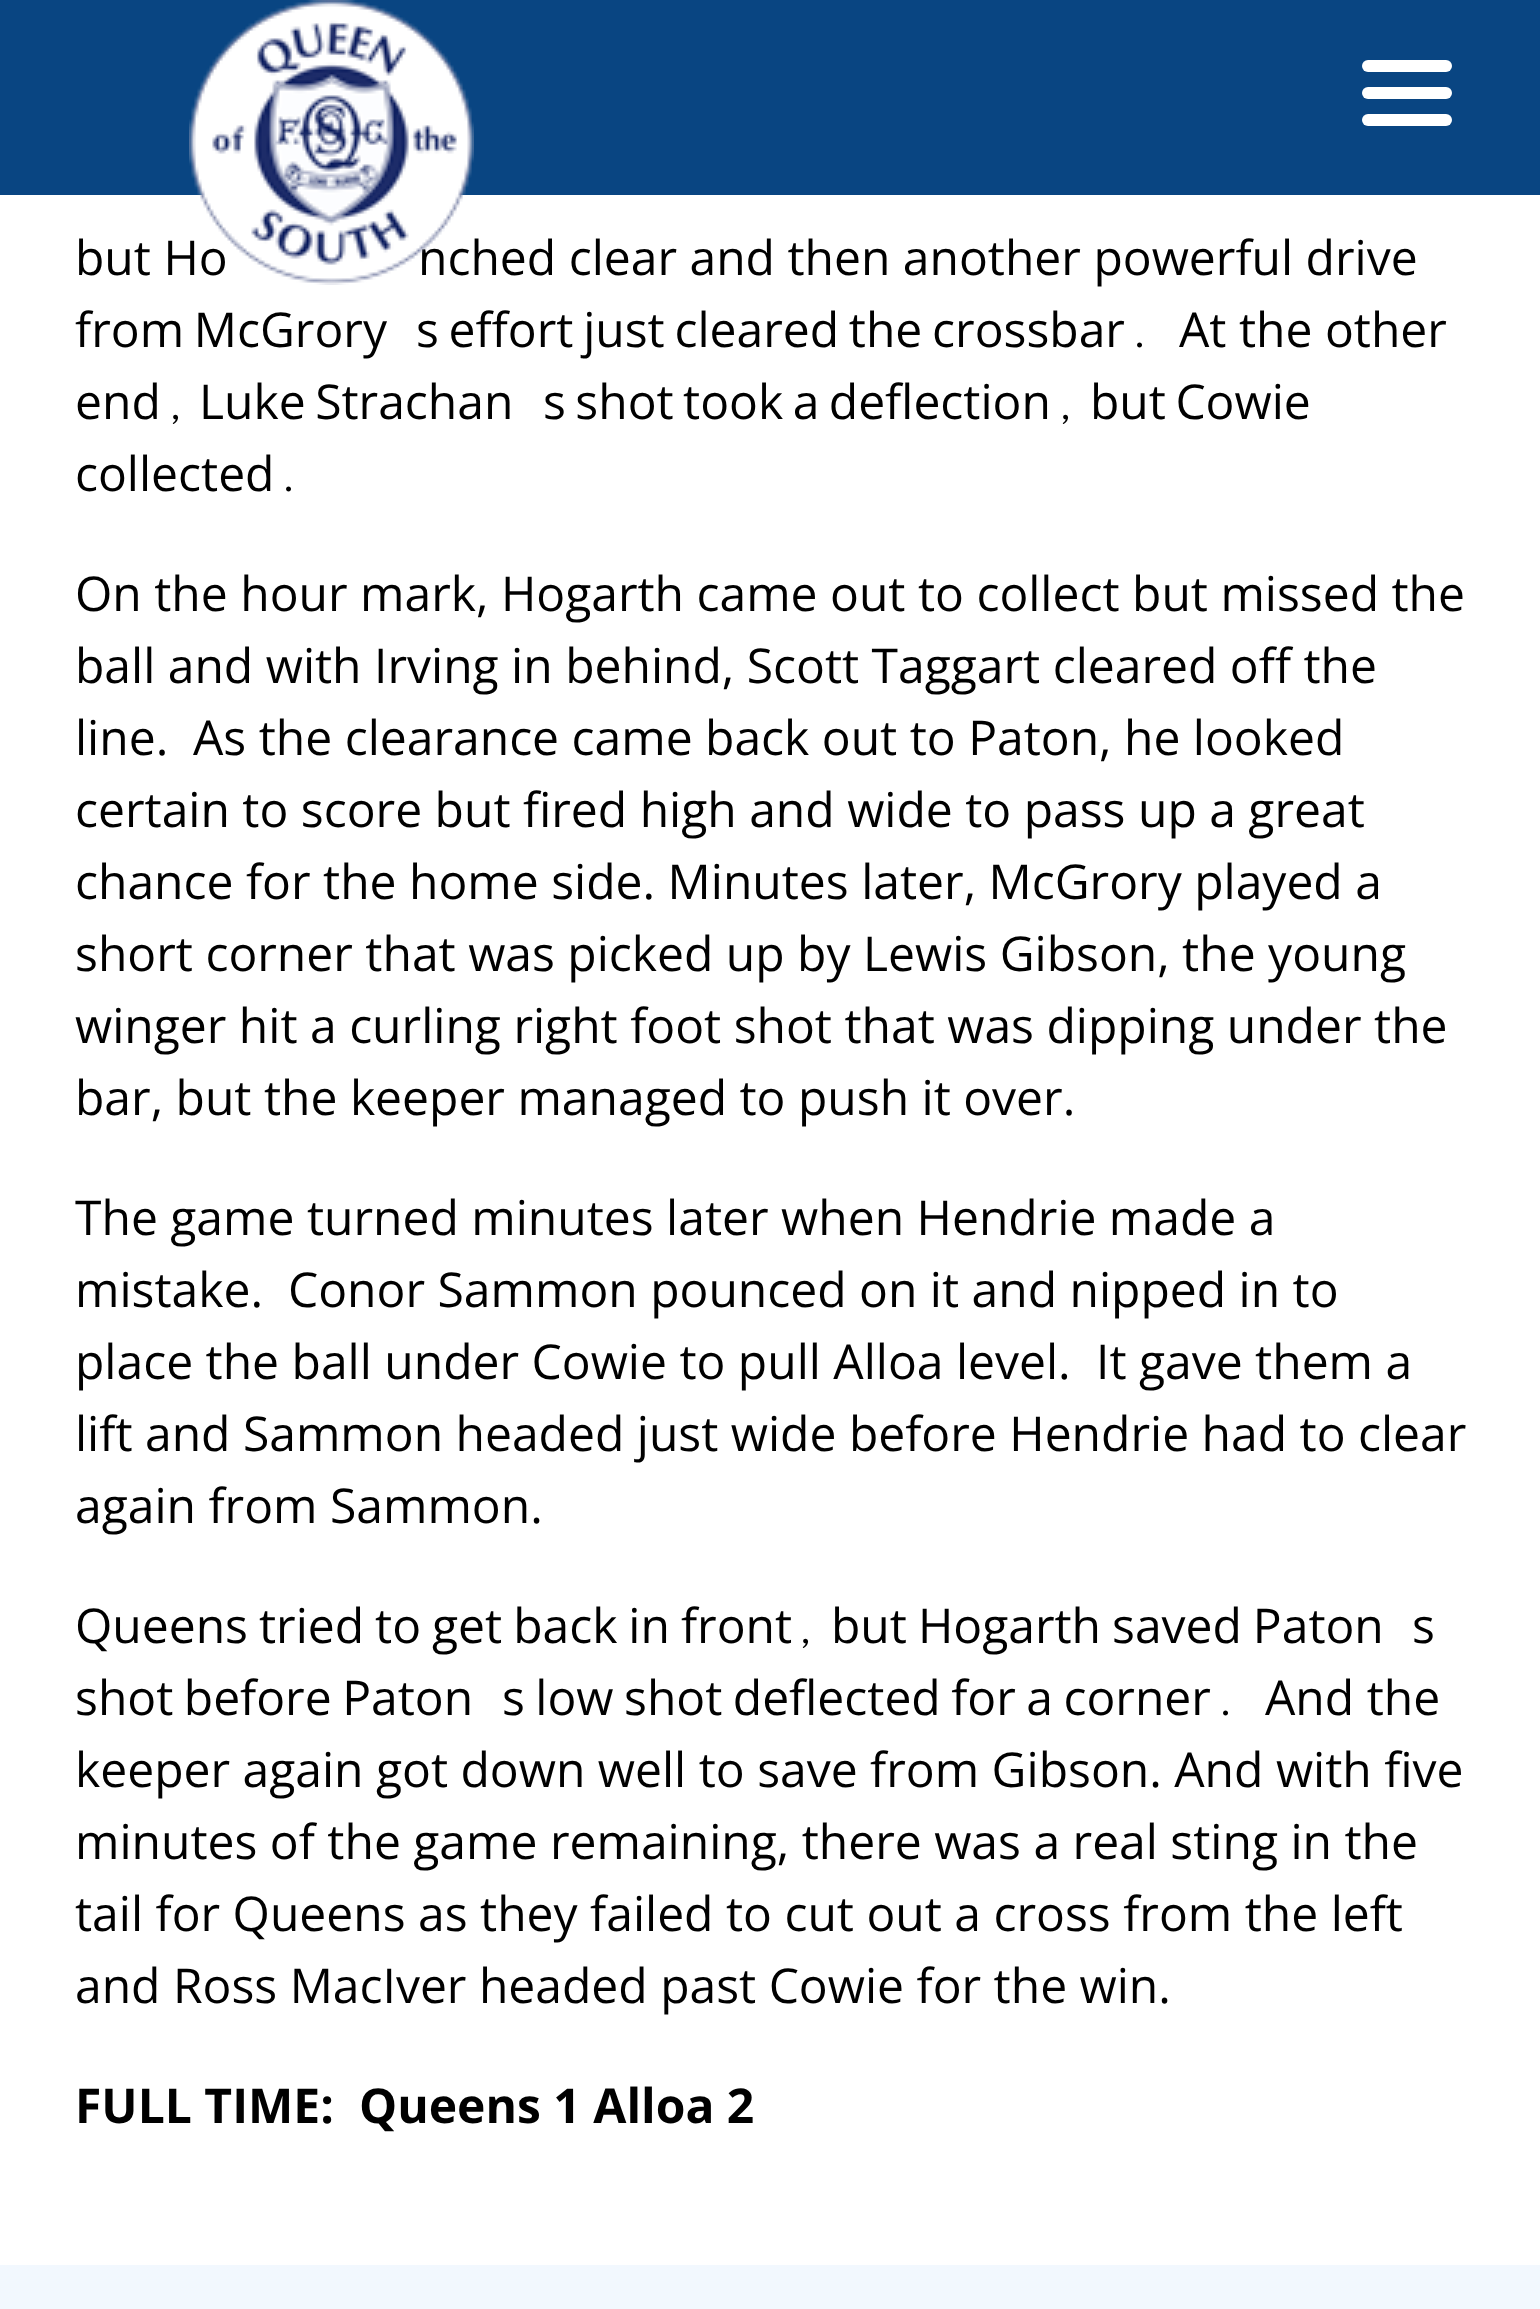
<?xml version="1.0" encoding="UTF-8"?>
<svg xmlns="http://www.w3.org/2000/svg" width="1540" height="2309">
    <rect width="100%" height="100%" fill="#F2F8FE"/>
    <rect x="0" y="0" width="1540" height="195" fill="#094582"/>
    <rect x="0" y="195" width="1540" height="2070" fill="#FFFFFF"/>
    <text x="75" y="275" font-family="Open Sans" font-size="48" fill="#000000">but Ho</text>
    <text x="418" y="275" font-family="Open Sans" font-size="48" fill="#000000">nched clear and then another powerful drive</text>
    <image x="189" y="0" width="285" height="285" href="img_01.png"/>
    <rect x="1362" y="60" width="90" height="12" rx="6" fill="#FFFFFF"/>
    <rect x="1362" y="87" width="90" height="12" rx="6" fill="#FFFFFF"/>
    <rect x="1362" y="114" width="90" height="12" rx="6" fill="#FFFFFF"/>
    <text x="75" y="347" word-spacing="-2.75" font-family="Open Sans" font-size="48" fill="#000000">from McGrory</text>
    <text x="416" y="347" word-spacing="-2.75" font-family="Open Sans" font-size="48" fill="#000000">s effort just cleared the crossbar</text>
    <text x="1125" y="347" font-family="Cutive Mono" font-size="48" fill="#000000">.</text>
    <text x="1179" y="347" font-family="Open Sans" font-size="48" fill="#000000">At the other</text>
    <text x="75" y="419" font-family="Open Sans" font-size="48" fill="#000000">end</text>
    <text x="161" y="419" font-family="Cutive Mono" font-size="48" fill="#000000">,</text>
    <text x="199" y="419" word-spacing="-3" font-family="Open Sans" font-size="48" fill="#000000">Luke Strachan</text>
    <text x="543" y="419" word-spacing="-3" font-family="Open Sans" font-size="48" fill="#000000">s shot took a deflection</text>
    <text x="1051" y="419" font-family="Cutive Mono" font-size="48" fill="#000000">,</text>
    <text x="1090" y="419" word-spacing="-3" font-family="Open Sans" font-size="48" fill="#000000">but Cowie</text>
    <text x="75" y="491" font-family="Open Sans" font-size="48" fill="#000000">collected</text>
    <text x="274" y="491" font-family="Cutive Mono" font-size="48" fill="#000000">.</text>
    <text font-family="Open Sans" font-size="48" fill="#000000">
        <tspan x="75" y="611">On the hour mark, Hogarth came out to collect but missed the</tspan>
        <tspan x="75" y="683">ball and with Irving in behind, Scott Taggart cleared off the</tspan>
        <tspan x="75" y="755">line.</tspan>
    </text>
    <text x="193" y="755" font-family="Open Sans" font-size="48" fill="#000000">As the clearance came back out to Paton, he looked</text>
    <text font-family="Open Sans" font-size="48" fill="#000000">
        <tspan x="75" y="827">certain to score but fired high and wide to pass up a great</tspan>
        <tspan x="75" y="899">chance for the home side. Minutes later, McGrory played a</tspan>
        <tspan x="75" y="971">short corner that was picked up by Lewis Gibson, the young</tspan>
        <tspan x="75" y="1043">winger hit a curling right foot shot that was dipping under the</tspan>
        <tspan x="75" y="1115">bar, but the keeper managed to push it over.</tspan>
    </text>
    <text font-family="Open Sans" font-size="48" fill="#000000">
        <tspan x="75" y="1235">The game turned minutes later when Hendrie made a</tspan>
        <tspan x="75" y="1307">mistake.</tspan>
    </text>
    <text x="288" y="1307" font-family="Open Sans" font-size="48" fill="#000000">Conor Sammon pounced on it and nipped in to</text>
    <text x="75" y="1379" font-family="Open Sans" font-size="48" fill="#000000">place the ball under Cowie to pull Alloa level.</text>
    <text x="1096" y="1379" font-family="Open Sans" font-size="48" fill="#000000">It gave them a</text>
    <text font-family="Open Sans" font-size="48" fill="#000000">
        <tspan x="75" y="1451">lift and Sammon headed just wide before Hendrie had to clear</tspan>
        <tspan x="75" y="1523">again from Sammon.</tspan>
    </text>
    <text x="75" y="1643" word-spacing="-1.5" font-family="Open Sans" font-size="48" fill="#000000">Queens tried to get back in front</text>
    <text x="791" y="1643" font-family="Cutive Mono" font-size="48" fill="#000000">,</text>
    <text x="831" y="1643" word-spacing="-1.5" font-family="Open Sans" font-size="48" fill="#000000">but Hogarth saved Paton</text>
    <text x="1412" y="1643" font-family="Open Sans" font-size="48" fill="#000000">s</text>
    <text x="75" y="1715" word-spacing="-2" font-family="Open Sans" font-size="48" fill="#000000">shot before Paton</text>
    <text x="502" y="1715" word-spacing="-2" font-family="Open Sans" font-size="48" fill="#000000">s low shot deflected for a corner</text>
    <text x="1211" y="1715" font-family="Cutive Mono" font-size="48" fill="#000000">.</text>
    <text x="1265" y="1715" font-family="Open Sans" font-size="48" fill="#000000">And the</text>
    <text font-family="Open Sans" font-size="48" fill="#000000">
        <tspan x="75" y="1787">keeper again got down well to save from Gibson. And with five</tspan>
        <tspan x="75" y="1859">minutes of the game remaining, there was a real sting in the</tspan>
        <tspan x="75" y="1931">tail for Queens as they failed to cut out a cross from the left</tspan>
        <tspan x="75" y="2003">and Ross MacIver headed past Cowie for the win.</tspan>
    </text>
    <text x="75" y="2123" font-family="Open Sans" font-size="48" font-weight="700" fill="#000000">FULL TIME:</text>
    <text x="359" y="2123" font-family="Open Sans" font-size="48" font-weight="700" fill="#000000">Queens 1 Alloa 2</text>
</svg>
